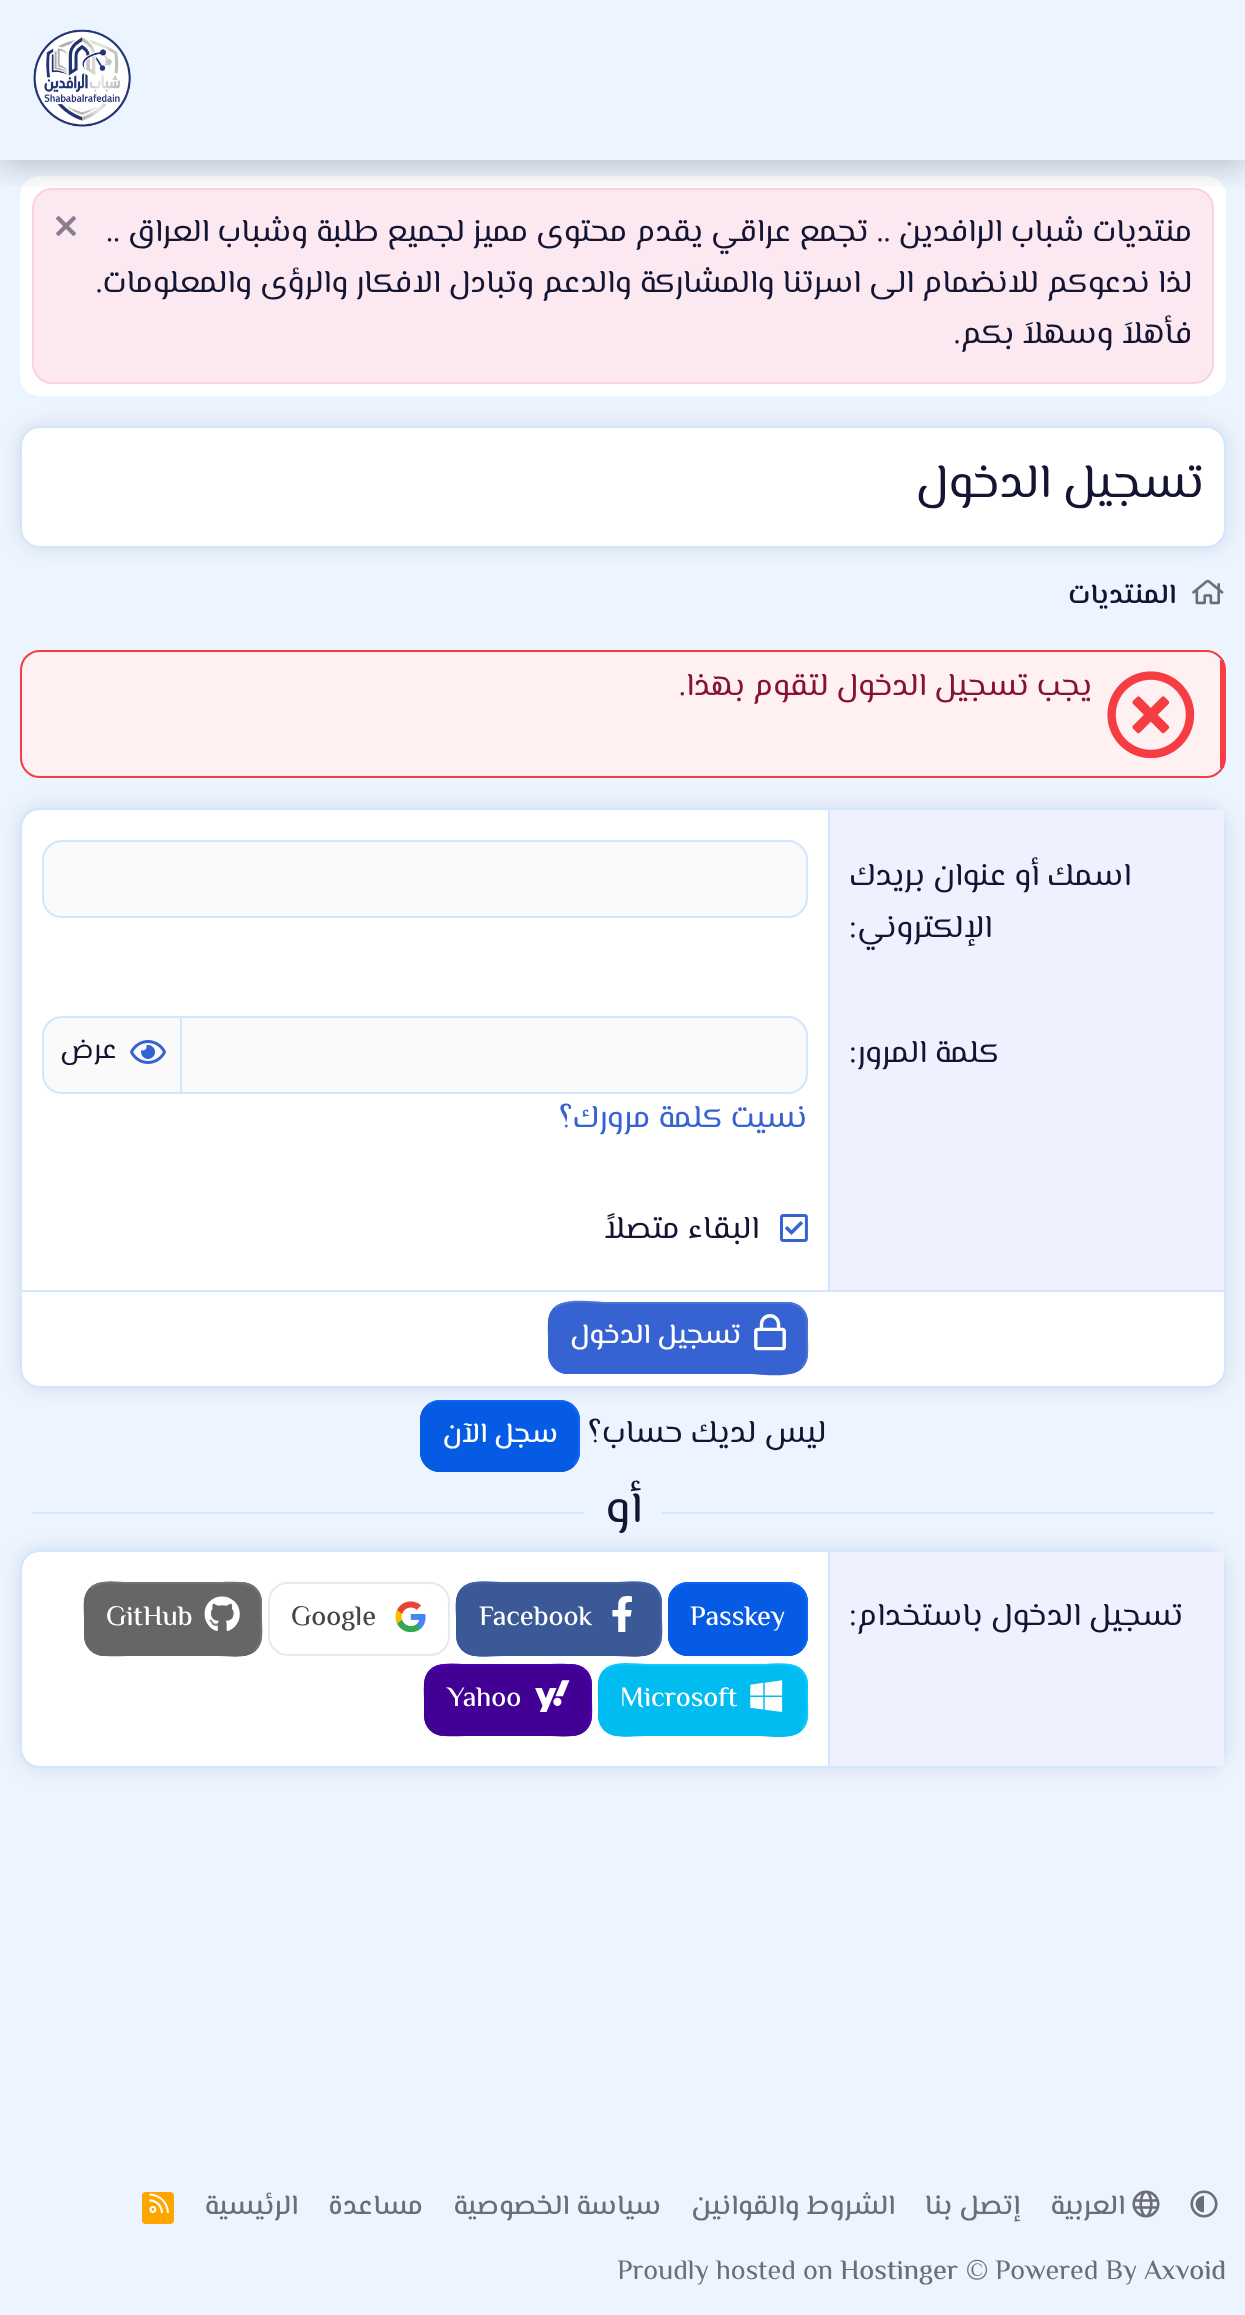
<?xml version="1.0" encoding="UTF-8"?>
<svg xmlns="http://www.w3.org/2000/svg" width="1245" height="2315">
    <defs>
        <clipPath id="clip1"><rect x="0" y="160" width="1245" height="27"/></clipPath>
        <filter id="blur1" x="-50%" y="-200%" width="200%" height="500%"><feGaussianBlur stdDeviation="15"/></filter>
        <filter id="blur2" x="-50%" y="-200%" width="200%" height="500%"><feGaussianBlur stdDeviation="10"/></filter>
    </defs>
    <rect width="100%" height="100%" fill="#EBF4FF"/>
    <rect x="20" y="176" width="1206" height="220" rx="20" fill="#FFFFFF"/>
    <rect x="32" y="188" width="1182" height="196" rx="20" fill="#FCE8F0"/>
    <rect x="33" y="189" width="1180" height="194" rx="19" fill="none" stroke="#DE1263" stroke-opacity="0.1" stroke-width="2"/>
    <g clip-path="url(#clip1)">
        <rect x="0" y="8" width="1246" height="160" fill="#000000" fill-opacity="0.2" filter="url(#blur1)"/>
    </g>
    <image x="33" y="29" width="98" height="98" href="img_01.png"/>
    <text x="1192" y="241" font-family="El Messiri" font-size="32" direction="rtl" fill="#141433">منتديات شباب الرافدين .. تجمع عراقي يقدم محتوى مميز لجميع طلبة وشباب العراق ..</text>
    <image x="56" y="216" width="20" height="20" href="img_02.png"/>
    <text font-family="El Messiri" font-size="32" direction="rtl" fill="#141433">
        <tspan x="1192" y="292">لذا ندعوكم للانضمام الى اسرتنا والمشاركة والدعم وتبادل الافكار والرؤى والمعلومات.</tspan>
        <tspan x="1192" y="343">فأهلاَ وسهلاَ بكم.</tspan>
    </text>
    <rect x="20" y="426" width="1206" height="122" rx="20" fill="#000000" fill-opacity="0.1" filter="url(#blur2)"/>
    <rect x="21" y="427" width="1204" height="120" rx="19" fill="#FFFFFF" stroke="#D1E6FF" stroke-width="2"/>
    <text x="1204" y="497" font-family="El Messiri" font-size="48" direction="rtl" fill="#141433">تسجيل الدخول</text>
    <image x="1192" y="579" width="32" height="26" href="img_03.png"/>
    <text x="1176" y="603" font-family="El Messiri" font-size="28" font-weight="600" direction="rtl" fill="#141433">المنتديات</text>
    <path d="M 40 652 H 1206 C 1214 652 1220 660 1220 670 V 758 C 1220 768 1214 776 1206 776 H 40 C 30 776 22 768 22 758 V 670 C 22 660 30 652 40 652 Z" fill="#FFF0F1"/>
    <rect x="20" y="808" width="1206" height="580" rx="20" fill="#000000" fill-opacity="0.1" filter="url(#blur2)"/>
    <rect x="21" y="651" width="1204" height="126" rx="19" fill="none" stroke="#F53D43" stroke-width="2"/>
    <rect x="1220" y="660" width="4" height="108" fill="#F53D43"/>
    <image x="1107" y="671" width="88" height="87" href="img_04.png"/>
    <text x="1092" y="695" font-family="El Messiri" font-size="32" direction="rtl" fill="#861336">يجب تسجيل الدخول لتقوم بهذا.</text>
    <rect x="21" y="809" width="1204" height="578" rx="19" fill="#FFFFFF" stroke="#D1E6FF" stroke-width="2"/>
    <rect x="830" y="810" width="394" height="478" fill="#F0F1FF"/>
    <rect x="828" y="810" width="2" height="478" fill="#D1E6FF"/>
    <text x="1131" y="885" font-family="El Messiri" font-size="32" direction="rtl" fill="#141433">اسمك أو عنوان بريدك</text>
    <text x="992" y="937" font-family="El Messiri" font-size="32" direction="rtl" fill="#141433">الإلكتروني</text>
    <text x="849" y="937" font-family="El Messiri" font-size="32" fill="#141433">:</text>
    <rect x="43" y="841" width="764" height="76" rx="19" fill="#FAFAFA" stroke="#D1E6FF" stroke-width="2"/>
    <text x="999" y="1062" font-family="El Messiri" font-size="32" direction="rtl" fill="#141433">كلمة المرور</text>
    <text x="849" y="1062" font-family="El Messiri" font-size="32" fill="#141433">:</text>
    <path d="M 182 1016 H 788 C 799 1016 808 1025 808 1036 V 1074 C 808 1085 799 1094 788 1094 H 182 Z" fill="#FAFAFA"/>
    <path d="M 182 1016 H 788 C 799 1016 808 1025 808 1036 V 1074 C 808 1085 799 1094 788 1094 H 182 Z M 182 1018 H 788 C 798 1018 806 1026 806 1036 V 1074 C 806 1084 798 1092 788 1092 H 182 Z" fill="#D1E6FF" fill-rule="evenodd"/>
    <path d="M 62 1017 H 181 V 1093 H 62 C 51.5 1093 43 1084.5 43 1074 V 1036 C 43 1025.5 51.5 1017 62 1017 Z" fill="#FAFAFA" stroke="#D1E6FF" stroke-width="2"/>
    <image x="130" y="1040" width="36" height="24" href="img_05.png"/>
    <text x="117" y="1058" font-family="El Messiri" font-size="28" direction="rtl" fill="#141433">عرض</text>
    <text x="807" y="1127" font-family="El Messiri" font-size="32" direction="rtl" fill="#3763D2">نسيت كلمة مرورك؟</text>
    <image x="780" y="1214" width="28" height="28" href="img_06.png"/>
    <text x="759" y="1238" font-family="El Messiri" font-size="32" direction="rtl" fill="#141433">البقاء متصلاً</text>
    <rect x="828" y="1288" width="396" height="2" fill="#F0F1FF"/>
    <rect x="828" y="1288" width="2" height="2" fill="#D1E6FF"/>
    <rect x="22" y="1290" width="1202" height="2" fill="#D1E6FF"/>
    <rect x="548" y="1302" width="260" height="72" rx="20" fill="#3763D2"/>
    <path d="M 554.5 1308.5 C 565.5 1297.5 597.5 1303 604.5 1303 H 788 C 797 1303 805 1309.5 806.5 1318.5 L 807 1338 C 807 1348 809 1359.5 801.5 1367.5" fill="none" stroke="#4C73D6" stroke-width="2"/>
    <path d="M 801.5 1367.5 C 790.5 1378.5 758.5 1373 751.5 1373 H 568 C 559 1373 551 1366.5 549.5 1357.5 L 549 1338 C 549 1328 547 1316.5 554.5 1308.5" fill="none" stroke="#3763D2" stroke-width="2"/>
    <image x="754" y="1314" width="32" height="37" href="img_07.png"/>
    <text x="741" y="1343" font-family="El Messiri" font-size="28" font-weight="500" direction="rtl" fill="#FFFFFF">تسجيل الدخول</text>
    <text x="826" y="1442" font-family="El Messiri" font-size="32" direction="rtl" fill="#141433">ليس لديك حساب؟</text>
    <rect x="420" y="1400" width="160" height="72" rx="20" fill="#065BE5"/>
    <path d="M 426.5 1406.5 C 430 1403 435 1401 440 1401 H 560 C 565 1401 570 1403 573.5 1406.5 C 577 1410 579 1415 579 1420 V 1452 C 579 1457 577 1462 573.5 1465.5" fill="none" stroke="#0B66F9" stroke-width="2"/>
    <path d="M 573.5 1465.5 C 570 1469 565 1471 560 1471 H 440 C 435 1471 430 1469 426.5 1465.5 C 423 1462 421 1457 421 1452 V 1420 C 421 1415 423 1410 426.5 1406.5" fill="none" stroke="#065BE5" stroke-width="2"/>
    <text x="558" y="1442" font-family="El Messiri" font-size="28" font-weight="500" direction="rtl" fill="#FFFFFF">سجل الآن</text>
    <rect x="662" y="1512" width="552" height="2" fill="#D1E6FF"/>
    <rect x="20" y="1550" width="1206" height="218" rx="20" fill="#000000" fill-opacity="0.1" filter="url(#blur2)"/>
    <text x="642" y="1522" font-family="El Messiri" font-size="48" direction="rtl" fill="#141433">أو</text>
    <rect x="32" y="1512" width="552" height="2" fill="#D1E6FF"/>
    <rect x="21" y="1551" width="1204" height="216" rx="19" fill="#FFFFFF" stroke="#D1E6FF" stroke-width="2"/>
    <rect x="830" y="1552" width="394" height="214" fill="#F0F1FF"/>
    <rect x="828" y="1552" width="2" height="214" fill="#D1E6FF"/>
    <text x="1183" y="1625" font-family="El Messiri" font-size="32" direction="rtl" fill="#141433">تسجيل الدخول باستخدام</text>
    <text x="849" y="1625" font-family="El Messiri" font-size="32" fill="#141433">:</text>
    <rect x="668" y="1582" width="140" height="74" rx="20" fill="#065BE5"/>
    <path d="M 674.5 1588.5 C 678 1585 683 1583 688 1583 H 788 C 793 1583 798 1585 801.5 1588.5 C 805 1592 807 1597 807 1602 V 1636 C 807 1641 805 1646 801.5 1649.5" fill="none" stroke="#0B66F9" stroke-width="2"/>
    <path d="M 801.5 1649.5 C 798 1653 793 1655 788 1655 H 688 C 683 1655 678 1653 674.5 1649.5 C 671 1646 669 1641 669 1636 V 1602 C 669 1597 671 1592 674.5 1588.5" fill="none" stroke="#065BE5" stroke-width="2"/>
    <text x="690" y="1625" font-family="El Messiri" font-size="28" font-weight="500" fill="#FFFFFF">Passkey</text>
    <rect x="456" y="1582" width="206" height="74" rx="20" fill="#3B5897"/>
    <path d="M 462.5 1588.5 C 472.5 1579 494 1583 503.5 1583 H 614.5 C 628.5 1583 656.5 1577 660.5 1598.5 L 661 1619 C 661 1629 663.5 1641.5 655.5 1649.5" fill="none" stroke="#4262A9" stroke-width="2"/>
    <path d="M 655.5 1649.5 C 645.5 1659 624 1655 614.5 1655 H 503.5 C 489.5 1655 461.5 1661 457.5 1639.5 L 457 1619 C 457 1609 454.5 1596.5 462.5 1588.5" fill="none" stroke="#3B5897" stroke-width="2"/>
    <image x="612" y="1596" width="20" height="36" href="img_08.png"/>
    <text x="479" y="1625" font-family="El Messiri" font-size="28" font-weight="500" fill="#FFFFFF">Facebook</text>
    <rect x="269" y="1583" width="180" height="72" rx="19" fill="none" stroke="#E9E9E9" stroke-width="2"/>
    <image x="395" y="1601" width="31" height="31" href="img_09.png"/>
    <text x="291" y="1625" font-family="El Messiri" font-size="28" font-weight="500" fill="#454545">Google</text>
    <rect x="84" y="1582" width="178" height="74" rx="20" fill="#666666"/>
    <path d="M 90.5 1588.5 C 99.5 1579.5 116.5 1583 127 1583 H 219 C 233.5 1583 256.5 1578.5 260.5 1598.5 L 261 1619 C 261 1629 263.5 1641.5 255.5 1649.5" fill="none" stroke="#737373" stroke-width="2"/>
    <path d="M 255.5 1649.5 C 246.5 1658.5 229.5 1655 219 1655 H 127 C 112.5 1655 89.5 1659.5 85.5 1639.5 L 85 1619 C 85 1609 82.5 1596.5 90.5 1588.5" fill="none" stroke="#666666" stroke-width="2"/>
    <image x="204" y="1596" width="36" height="35" href="img_10.png"/>
    <text x="106" y="1625" font-family="El Messiri" font-size="28" font-weight="500" fill="#FFFFFF">GitHub</text>
    <rect x="598" y="1664" width="210" height="72" rx="20" fill="#00BCF0"/>
    <path d="M 604.5 1670.5 C 614.5 1660.5 636.5 1665 646.5 1665 H 759.5 C 774 1665 802.5 1659 806.5 1680.5 L 807 1700 C 807 1710 809 1721.5 801.5 1729.5" fill="none" stroke="#0ACAFF" stroke-width="2"/>
    <path d="M 801.5 1729.5 C 791.5 1739.5 769.5 1735 759.5 1735 H 646.5 C 632 1735 603.5 1741 599.5 1719.5 L 599 1700 C 599 1690 597 1678.5 604.5 1670.5" fill="none" stroke="#00BCF0" stroke-width="2"/>
    <image x="750" y="1680" width="33" height="32" href="img_11.png"/>
    <text x="620" y="1706" font-family="El Messiri" font-size="28" font-weight="500" fill="#FFFFFF">Microsoft</text>
    <rect x="424" y="1664" width="168" height="72" rx="20" fill="#430094"/>
    <path d="M 430.5 1670.5 C 439.5 1662 455 1665 465.5 1665 H 550.5 C 565 1665 587 1661 590.5 1680.5 L 591 1700 C 591 1710 593 1721.5 585.5 1729.5" fill="none" stroke="#4E00AD" stroke-width="2"/>
    <path d="M 585.5 1729.5 C 576.5 1738 561 1735 550.5 1735 H 465.5 C 451 1735 429 1739 425.5 1719.5 L 425 1700 C 425 1690 423 1678.5 430.5 1670.5" fill="none" stroke="#430094" stroke-width="2"/>
    <image x="535" y="1680" width="35" height="32" href="img_12.png"/>
    <text x="447" y="1706" font-family="El Messiri" font-size="28" font-weight="500" fill="#FFFFFF">Yahoo</text>
    <image x="1190" y="2190" width="28" height="28" href="img_13.png"/>
    <image x="1132" y="2190" width="28" height="28" href="img_14.png"/>
    <text x="1125" y="2214" font-family="El Messiri" font-size="28" font-weight="500" direction="rtl" fill="#6C6C7A">العربية</text>
    <text x="1020" y="2214" font-family="El Messiri" font-size="28" font-weight="500" direction="rtl" fill="#6C6C7A">إتصل بنا</text>
    <text x="895" y="2214" font-family="El Messiri" font-size="28" font-weight="500" direction="rtl" fill="#6C6C7A">الشروط والقوانين</text>
    <text x="661" y="2214" font-family="El Messiri" font-size="28" font-weight="500" direction="rtl" fill="#6C6C7A">سياسة الخصوصية</text>
    <text x="423" y="2214" font-family="El Messiri" font-size="28" font-weight="500" direction="rtl" fill="#6C6C7A">مساعدة</text>
    <text x="298" y="2214" font-family="El Messiri" font-size="28" font-weight="500" direction="rtl" fill="#6C6C7A">الرئيسية</text>
    <rect x="142" y="2192" width="32" height="32" rx="4" fill="#FFA500"/>
    <image x="149" y="2193" width="20" height="20" href="img_15.png"/>
    <text x="1144" y="2279" font-family="El Messiri" font-size="28" font-weight="500" fill="#6C6C7A">Axvoid</text>
    <text x="966" y="2279" font-family="El Messiri" font-size="28" fill="#6C6C7A">© Powered By</text>
    <text x="840" y="2279" font-family="El Messiri" font-size="28" font-weight="500" fill="#6C6C7A">Hostinger</text>
    <text x="617" y="2279" font-family="El Messiri" font-size="28" fill="#6C6C7A">Proudly hosted on</text>
</svg>
